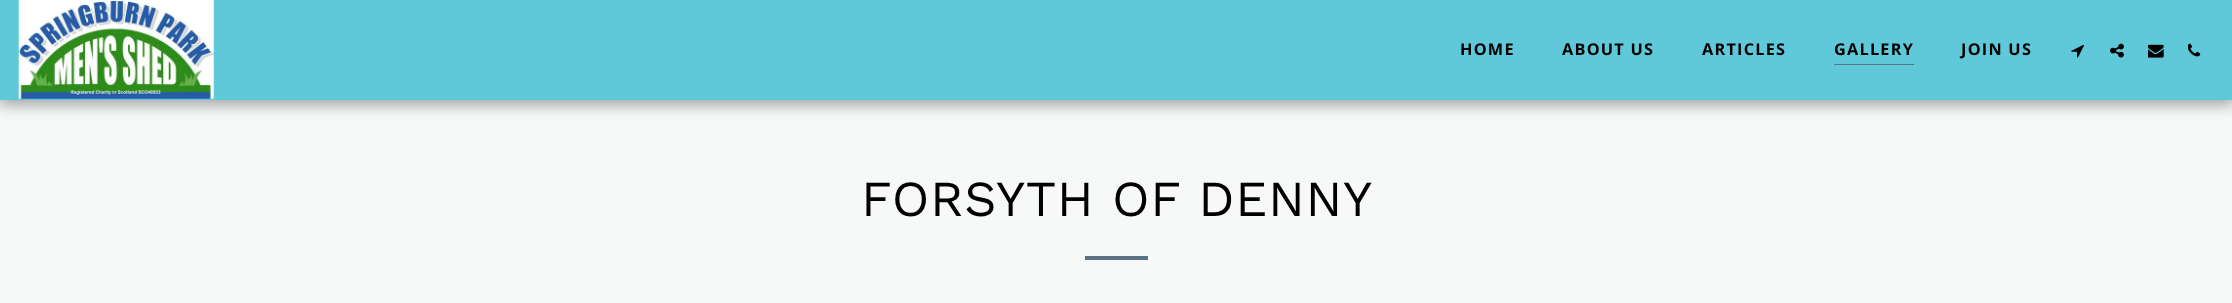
<?xml version="1.0" encoding="UTF-8"?>
<svg xmlns="http://www.w3.org/2000/svg" width="2232" height="303">
    <defs>
        <filter id="blur1" x="-50%" y="-200%" width="200%" height="500%"><feGaussianBlur stdDeviation="7.5"/></filter>
    </defs>
    <rect width="100%" height="100%" fill="#F7F9F8"/>
    <rect x="-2" y="0" width="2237" height="105" fill="#000000" fill-opacity="0.35" filter="url(#blur1)"/>
    <rect x="0" y="0" width="2232" height="100" fill="#5FC9DA"/>
    <image x="18" y="0" width="196" height="99" href="img_01.png"/>
    <text x="1460" y="55" font-family="Open Sans" font-size="16.25" font-weight="700" letter-spacing="1.25" fill="#000000">HOME</text>
    <text x="1562" y="55" font-family="Open Sans" font-size="16.25" font-weight="700" letter-spacing="1.25" fill="#000000">ABOUT US</text>
    <text x="1702" y="55" font-family="Open Sans" font-size="16.25" font-weight="700" letter-spacing="1.25" fill="#000000">ARTICLES</text>
    <text x="1834" y="55" font-family="Open Sans" font-size="16.25" font-weight="700" letter-spacing="1.25" fill="#000000">GALLERY</text>
    <rect x="1834" y="64" width="80" height="1" fill="#5B7485"/>
    <text x="1961" y="55" font-family="Open Sans" font-size="16.25" font-weight="700" letter-spacing="1.25" fill="#000000">JOIN US</text>
    <image x="2071" y="44" width="13" height="14" href="img_02.png"/>
    <image x="2110" y="43" width="14" height="15" href="img_03.png"/>
    <image x="2148" y="44" width="16" height="14" href="img_04.png"/>
    <image x="2188" y="43" width="13" height="14" href="img_05.png"/>
    <text x="861" y="216" font-family="Work Sans" font-size="50.4" letter-spacing="0.6" fill="#000000">FORSYTH OF DENNY</text>
    <rect x="1085" y="256" width="63" height="4" fill="#5B7485"/>
</svg>
